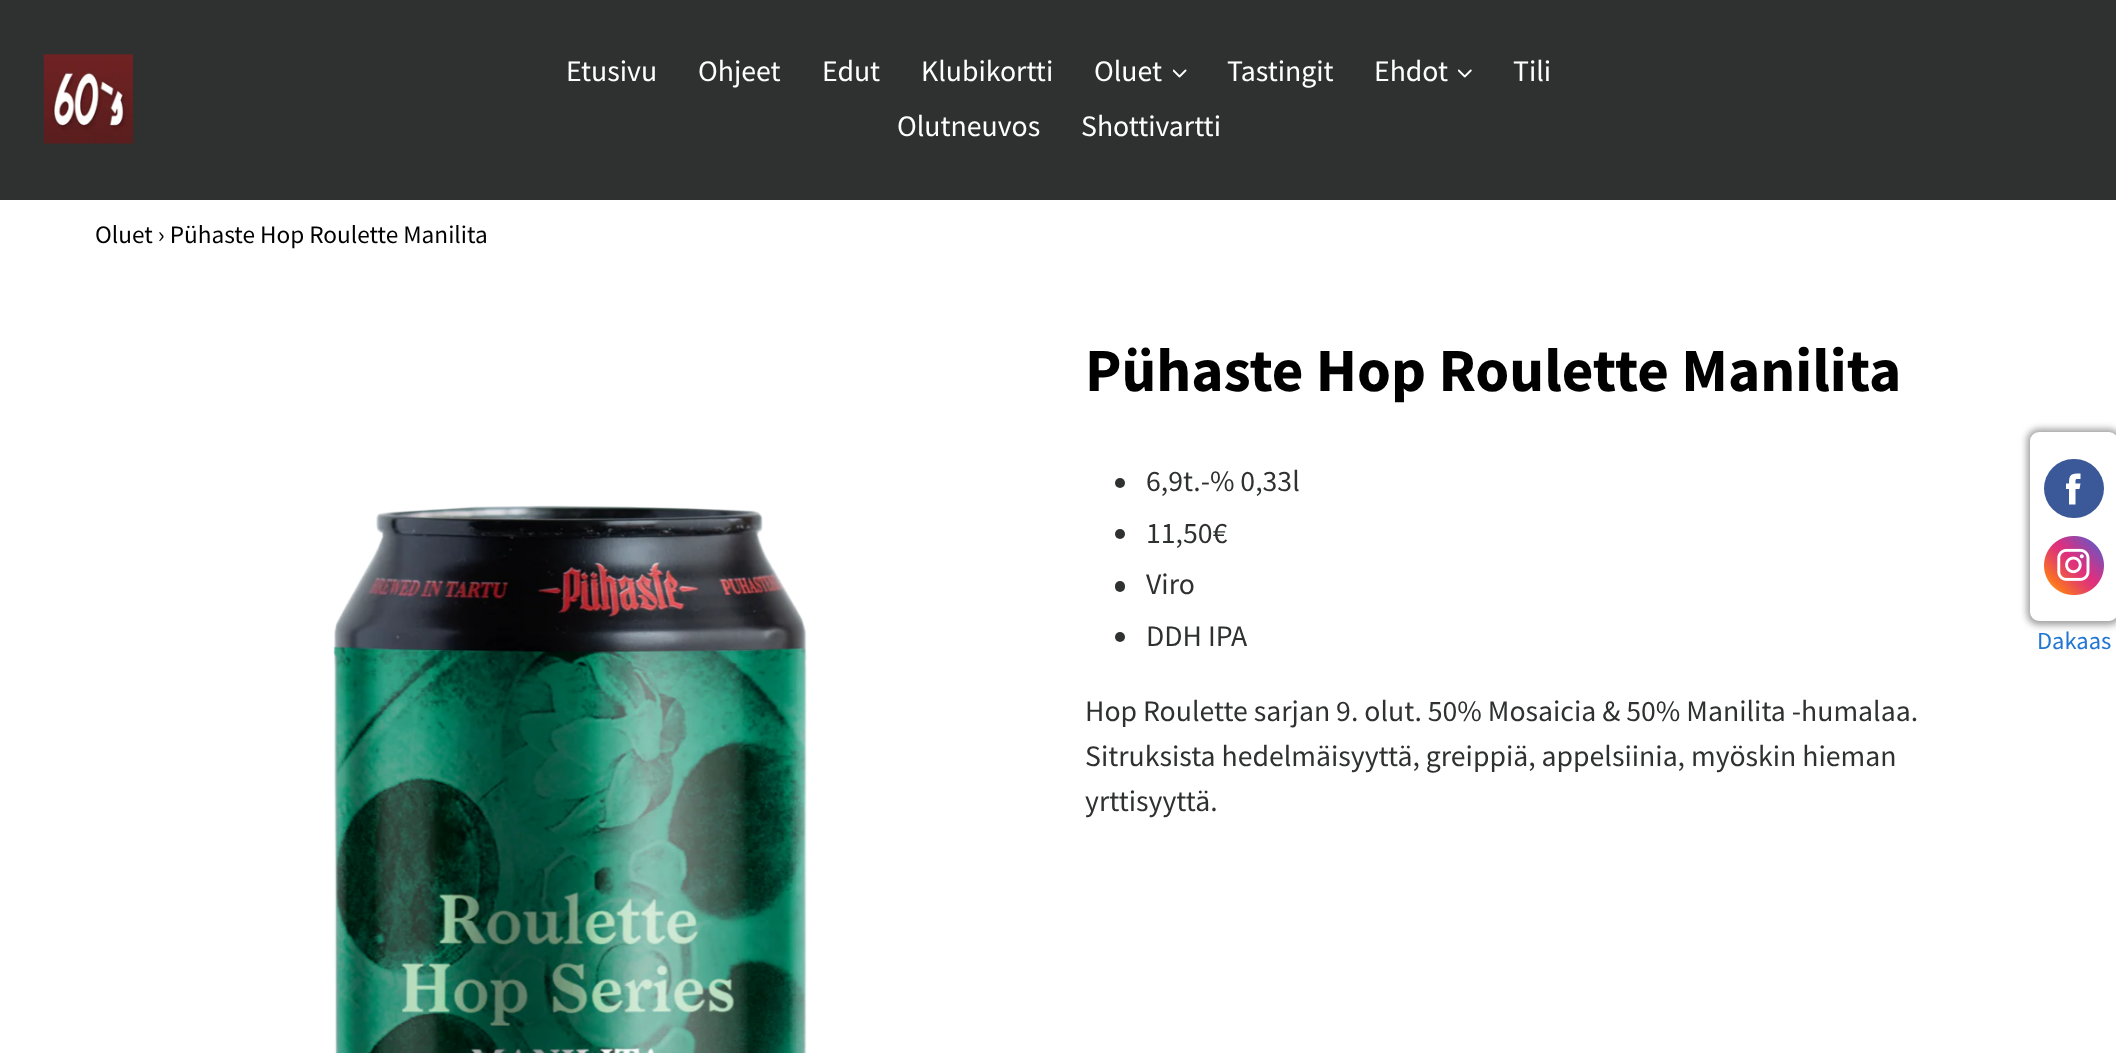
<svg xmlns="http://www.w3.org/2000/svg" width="2116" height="1053">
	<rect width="100%" height="100%" fill="#FFFFFF" />
	<rect x="0" y="0" width="2116" height="200" fill="#2F3131" />
	<image x="43" y="54" width="90" height="90" href="assets/img1.png" />
	<g font-family="Source Sans Pro" font-size="29.75" fill="#FFFFFF">
		<text x="566" y="81">Etusivu</text>
		<text x="698" y="81">Ohjeet</text>
		<text x="822" y="81">Edut</text>
		<text x="921" y="81">Klubikortti</text>
		<text x="1094" y="81">Oluet</text>
	</g>
	<image x="1173" y="69" width="14" height="9" href="assets/img2.png" />
	<g font-family="Source Sans Pro" font-size="29.75" fill="#FFFFFF">
		<text x="1227" y="81">Tastingit</text>
		<text x="1374" y="81">Ehdot</text>
	</g>
	<image x="1458" y="69" width="14" height="9" href="assets/img3.png" />
	<g font-family="Source Sans Pro" font-size="29.75" fill="#FFFFFF">
		<text x="1513" y="81">Tili</text>
		<text x="897" y="136">Olutneuvos</text>
		<text x="1081" y="136">Shottivartti</text>
	</g>
	<text x="95" y="243" font-family="Source Sans Pro" font-size="25.25" fill="#000000">Oluet › Pühaste Hop Roulette Manilita</text>
	<image x="333" y="505" width="474" height="548" href="assets/img4.png" />
	<text x="1085" y="391" font-family="Source Sans Pro" font-size="61.25" font-weight="700" fill="#000000">Pühaste Hop Roulette Manilita</text>
	<circle cx="1120" cy="483" r="5" fill="#2F3131" />
	<text x="1146" y="491" font-family="Source Sans Pro" font-size="29.75" fill="#2F3131">6,9t.-% 0,33l</text>
	<circle cx="1120" cy="534" r="5" fill="#2F3131" />
	<text x="1146" y="543" font-family="Source Sans Pro" font-size="29.75" fill="#2F3131">11,50€</text>
	<rect x="1115" y="581" width="10" height="11" rx="5" fill="#2F3131" />
	<text x="1146" y="594" font-family="Source Sans Pro" font-size="29.75" fill="#2F3131">Viro</text>
	<circle cx="1120" cy="637" r="5" fill="#2F3131" />
	<g font-family="Source Sans Pro" font-size="29.75" fill="#2F3131">
		<text x="1146" y="646">DDH IPA</text>
		<text x="1085" y="721">Hop Roulette sarjan 9. olut. 50% Mosaicia &amp; 50% Manilita -humalaa.</text>
		<text x="1085" y="766">Sitruksista hedelmäisyyttä, greippiä, appelsiinia, myöskin hieman</text>
		<text x="1085" y="811">yrttisyyttä.</text>
	</g>
	<rect x="2027" y="429" width="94" height="196" rx="12" fill="#9E9E9E" filter="blur(3.5px)" />
	<rect x="2030" y="432" width="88" height="189" rx="9" fill="#FFFFFF" />
	<rect x="2044" y="459" width="60" height="59" rx="29.5" fill="#3B5998" />
	<path d="M2079.5 489H2075.5V504.5H2069V489H2066V483.5H2069C2069 474 2071 473.5 2080.5 473.5V479C2075 479 2075.5 478.5 2075.5 483.5H2080.5Z" fill="#FFFFFF" />
	<image x="2044" y="536" width="60" height="59" href="assets/img5.png" />
	<text x="2037" y="649" font-family="Source Sans Pro" font-size="24.5" fill="#2076D2">Dakaas</text>
</svg>
